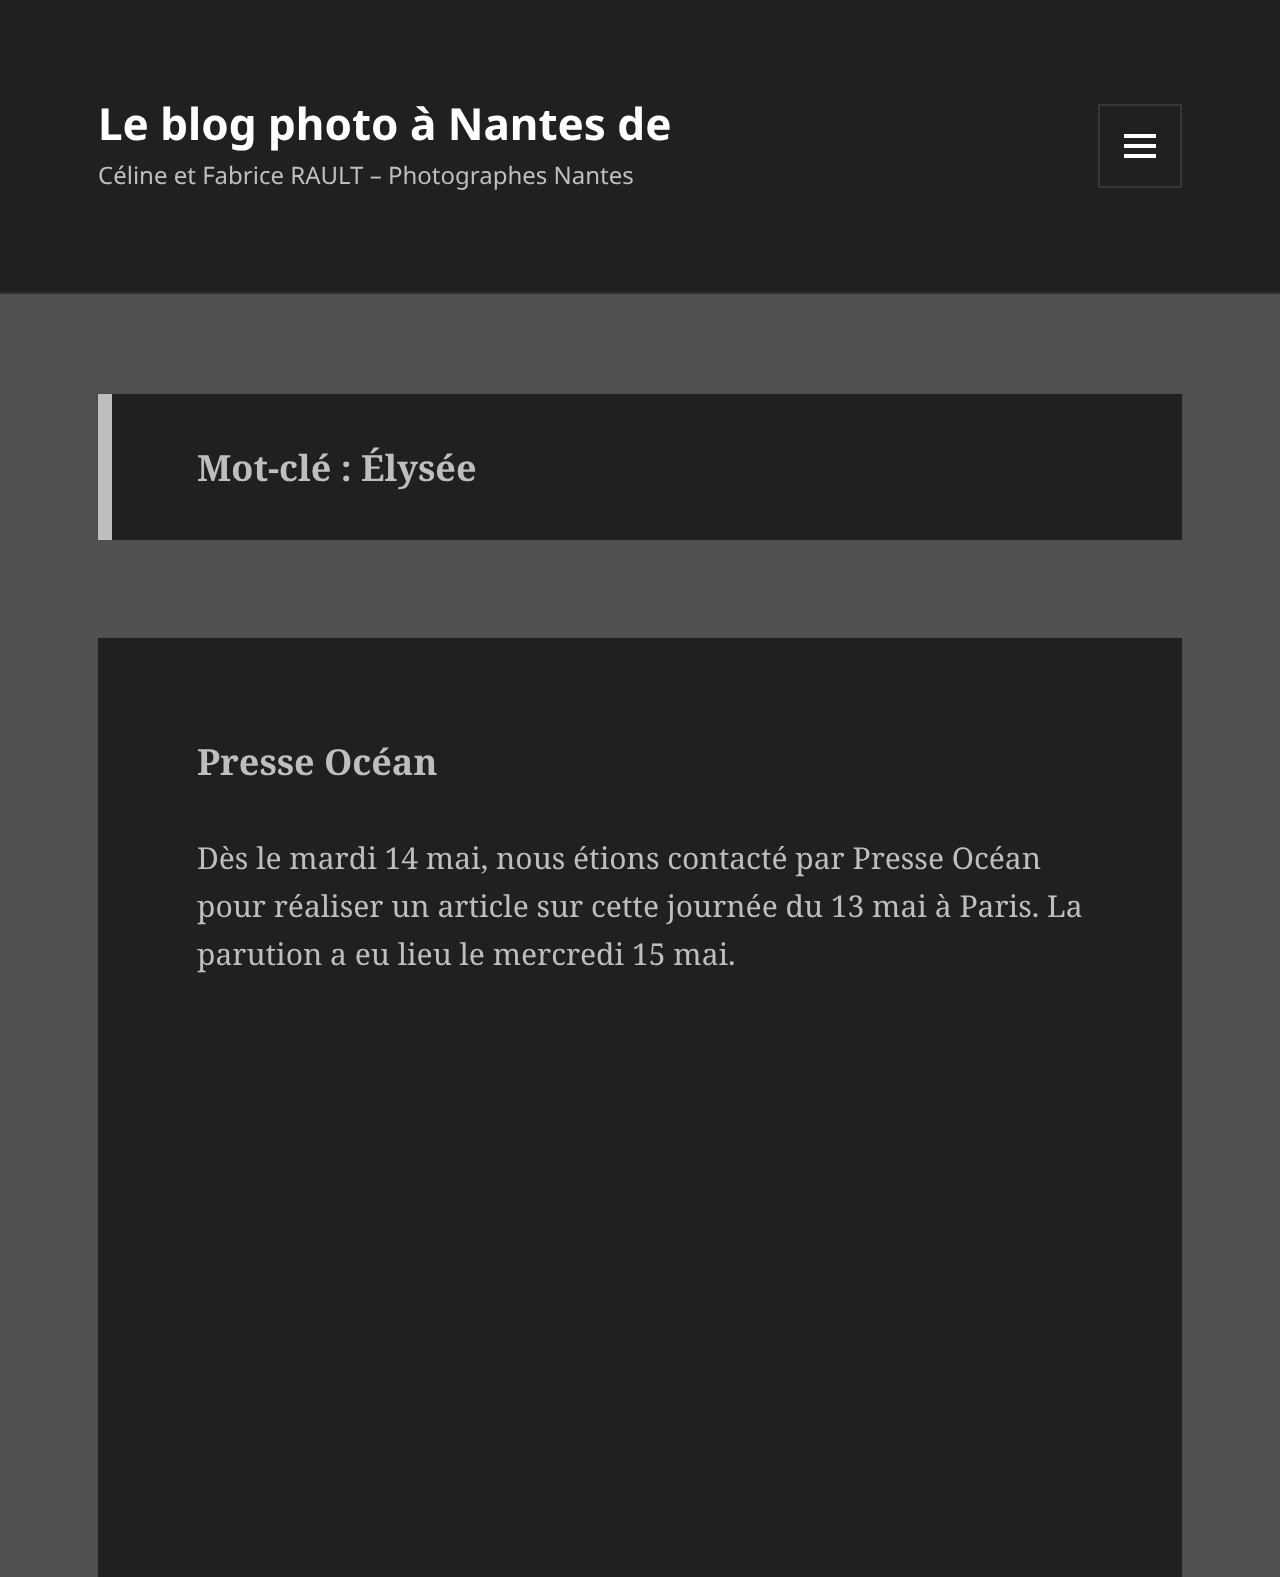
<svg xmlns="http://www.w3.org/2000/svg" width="1280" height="1577">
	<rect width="100%" height="100%" fill="#515151" />
	<rect x="0" y="0" width="1280" height="292" fill="#202020" />
	<rect x="0" y="292" width="1280" height="2" fill="#303030" />
	<text x="98" y="140" font-family="Noto Sans" font-size="44" font-weight="700" fill="#FFFFFF">Le blog photo à Nantes de</text>
	<rect x="1099" y="105" width="82" height="82" fill="none" stroke="#363636" stroke-width="2" />
	<image x="1124" y="134" width="32" height="24" href="assets/img1.png" />
	<text x="98" y="184" font-family="Noto Sans" font-size="24" fill="#BEBEBE">Céline et Fabrice RAULT – Photographes Nantes</text>
	<rect x="98" y="394" width="1084" height="146" fill="#000000" fill-opacity="0.15" filter="blur(1px)" />
	<rect x="112" y="394" width="1070" height="146" fill="#202020" />
	<rect x="98" y="394" width="14" height="146" fill="#BEBEBE" />
	<text x="197" y="481" font-family="Noto Serif" font-size="36" font-weight="700" fill="#BEBEBE">Mot-clé : Élysée</text>
	<rect x="98" y="638" width="1084" height="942" fill="#000000" fill-opacity="0.15" filter="blur(1px)" />
	<rect x="98" y="638" width="1084" height="939" fill="#202020" />
	<text x="197" y="775" font-family="Noto Serif" font-size="36" font-weight="700" fill="#BEBEBE">Presse Océan</text>
	<g font-family="Noto Serif" font-size="30" fill="#BEBEBE">
		<text x="197" y="869">Dès le mardi 14 mai, nous étions contacté par Presse Océan</text>
		<text x="197" y="917">pour réaliser un article sur cette journée du 13 mai à Paris. La</text>
		<text x="197" y="965">parution a eu lieu le mercredi 15 mai.</text>
	</g>
</svg>
